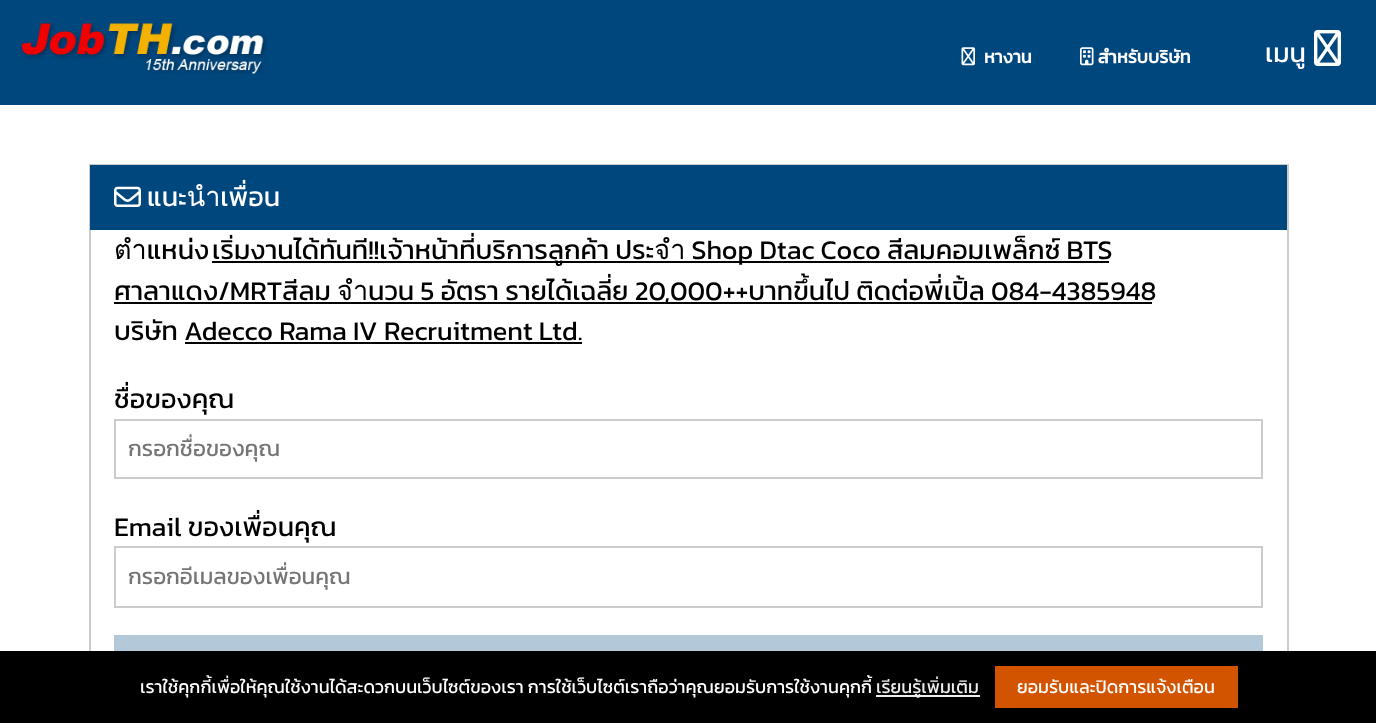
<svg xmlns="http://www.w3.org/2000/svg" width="1376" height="723">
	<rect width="100%" height="100%" fill="#00477E" />
	<image x="21" y="23" width="247" height="51" href="assets/img1.png" />
	<image x="961" y="47" width="14" height="19" href="assets/img2.png" />
	<text x="984" y="63" font-family="Kanit" font-size="18" font-weight="700" fill="#FFFFFF">หางาน</text>
	<image x="1080" y="47" width="14" height="19" href="assets/img3.png" />
	<text x="1098" y="63" font-family="Kanit" font-size="18" font-weight="700" fill="#FFFFFF">สำหรับบริษัท</text>
	<text x="1265" y="62" font-family="Kanit" font-size="27" fill="#FFFFFF">เมนู</text>
	<image x="1314" y="30" width="27" height="36" href="assets/img4.png" />
	<rect x="0" y="105" width="1376" height="546" fill="#FFFFFF" />
	<rect x="90" y="165" width="1198" height="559" fill="none" stroke="#CCCCCC" stroke-width="2" />
	<rect x="90" y="165" width="1197" height="65" fill="#00477E" />
	<image x="114" y="186" width="27" height="21" href="assets/img5.png" />
	<text x="147" y="206" font-family="Kanit" font-size="27" fill="#FFFFFF">แนะนำเพื่อน</text>
	<text x="114" y="259" font-family="Kanit" font-size="27" fill="#000000">ตำแหน่ง</text>
	<rect x="212" y="261" width="897" height="2" fill="#000000" />
	<text x="212" y="259" font-family="Kanit" font-size="27" fill="#000000">เริ่มงานได้ทันที!!เจ้าหน้าที่บริการลูกค้า ประจำ Shop Dtac Coco สีลมคอมเพล็กซ์ BTS</text>
	<rect x="114" y="302" width="1038" height="2" fill="#000000" />
	<g font-family="Kanit" font-size="27" fill="#000000">
		<text x="114" y="300">ศาลาแดง/MRTสีลม จำนวน 5 อัตรา รายได้เฉลี่ย 20,000++บาทขึ้นไป ติดต่อพี่เปิ้ล 084-4385948</text>
		<text x="114" y="340">บริษัท Adecco Rama IV Recruitment Ltd.</text>
	</g>
	<rect x="185" y="342" width="397" height="2" fill="#000000" />
	<text x="114" y="408" font-family="Kanit" font-size="27" fill="#000000">ชื่อของคุณ</text>
	<rect x="115" y="420" width="1147" height="58" fill="none" stroke="#CCCCCC" stroke-width="2" />
	<text x="128" y="456" font-family="Kanit" font-size="22.5" fill="#757575">กรอกชื่อของคุณ</text>
	<text x="114" y="536" font-family="Kanit" font-size="27" fill="#000000">Email ของเพื่อนคุณ</text>
	<rect x="115" y="547" width="1147" height="60" fill="none" stroke="#CCCCCC" stroke-width="2" />
	<text x="128" y="584" font-family="Kanit" font-size="22.5" fill="#757575">กรอกอีเมลของเพื่อนคุณ</text>
	<rect x="114" y="635" width="1149" height="16" fill="#B3C8D8" />
	<rect x="0" y="651" width="1376" height="72" fill="#000000" />
	<text x="140" y="693" font-family="Kanit" font-size="18" fill="#FFFFFF">เราใช้คุกกี้เพื่อให้คุณใช้งานได้สะดวกบนเว็บไซต์ของเรา การใช้เว็บไซต์เราถือว่าคุณยอมรับการใช้งานคุกกี้</text>
	<rect x="876" y="695" width="104" height="2" fill="#EEEEEE" />
	<text x="876" y="693" font-family="Kanit" font-size="18" fill="#EEEEEE">เรียนรู้เพิ่มเติม</text>
	<rect x="995" y="666" width="243" height="42" fill="#D35400" />
	<text x="1017" y="693" font-family="Kanit" font-size="18" fill="#FFFFFF">ยอมรับและปิดการแจ้งเตือน</text>
</svg>
